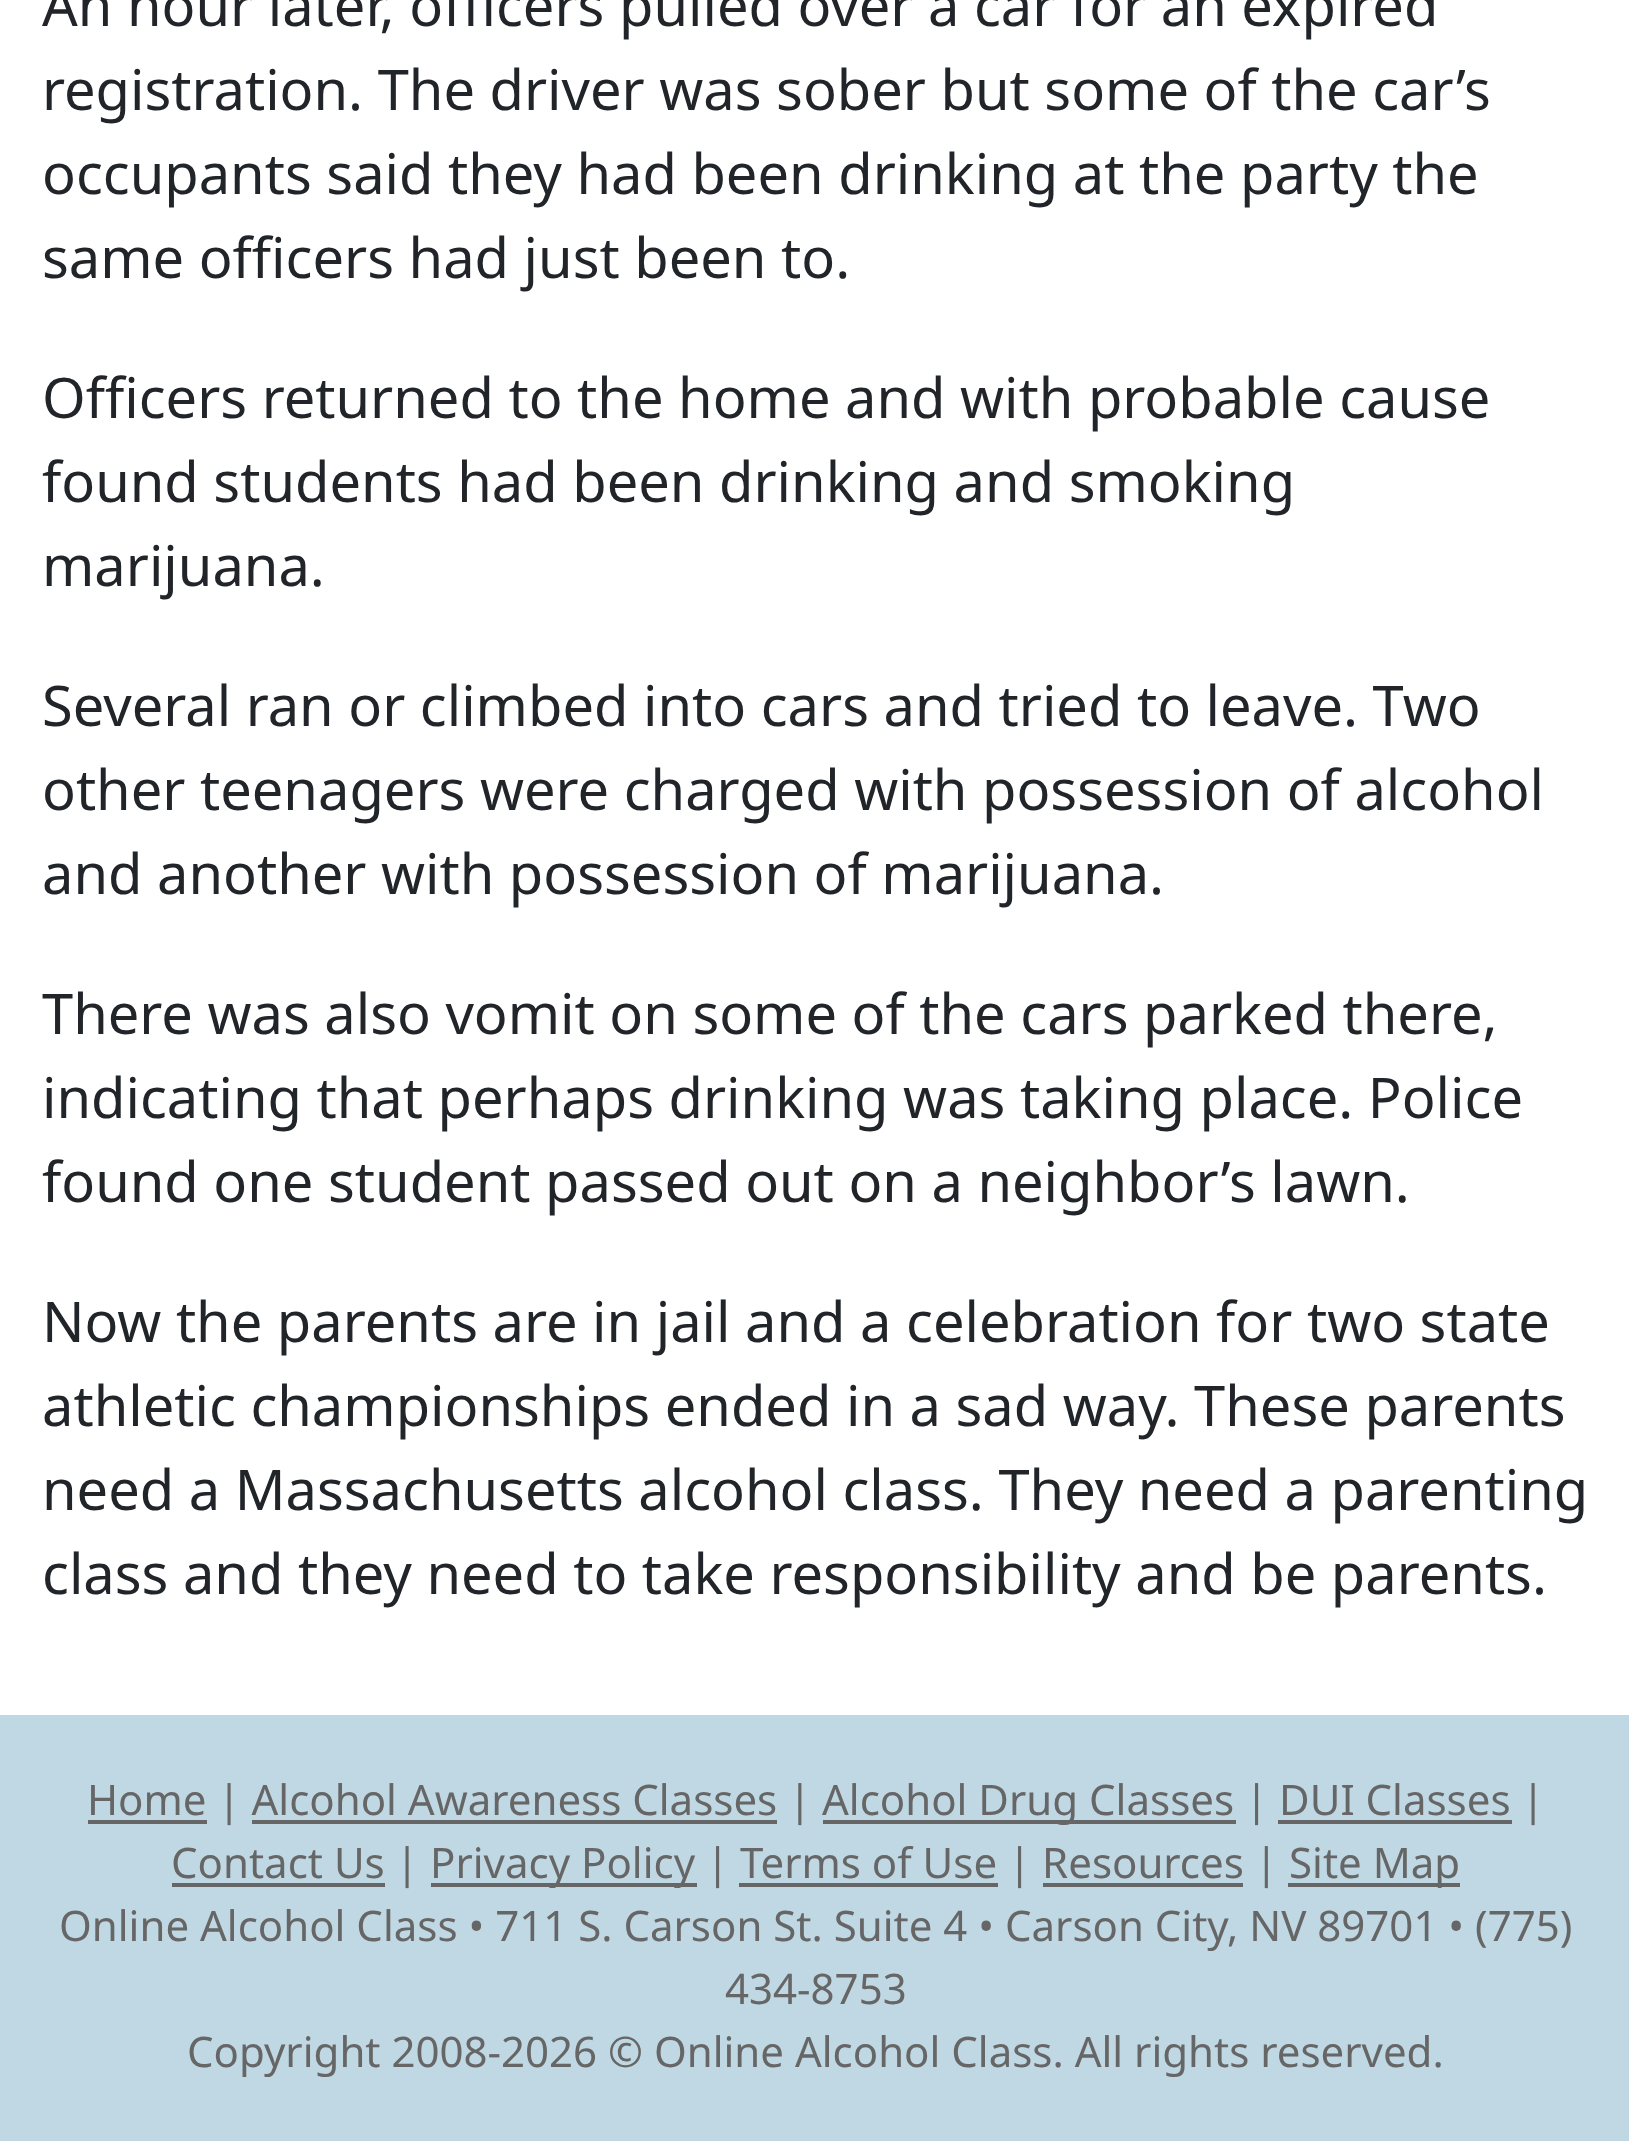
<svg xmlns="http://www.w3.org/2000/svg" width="1629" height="2141">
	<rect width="100%" height="100%" fill="#BFD8E3" />
	<rect x="0" y="0" width="1629" height="1715" fill="#FFFFFF" />
	<g font-family="Noto Sans" font-size="56" fill="#212529">
		<text x="42" y="26">An hour later, officers pulled over a car for an expired</text>
		<text x="42" y="110">registration. The driver was sober but some of the car’s</text>
		<text x="42" y="194">occupants said they had been drinking at the party the</text>
		<text x="42" y="278">same officers had just been to.</text>
		<text x="42" y="418">Officers returned to the home and with probable cause</text>
		<text x="42" y="502">found students had been drinking and smoking</text>
		<text x="42" y="586">marijuana.</text>
		<text x="42" y="726">Several ran or climbed into cars and tried to leave. Two</text>
		<text x="42" y="810">other teenagers were charged with possession of alcohol</text>
		<text x="42" y="894">and another with possession of marijuana.</text>
		<text x="42" y="1034">There was also vomit on some of the cars parked there,</text>
		<text x="42" y="1118">indicating that perhaps drinking was taking place. Police</text>
		<text x="42" y="1202">found one student passed out on a neighbor’s lawn.</text>
		<text x="42" y="1342">Now the parents are in jail and a celebration for two state</text>
		<text x="42" y="1426">athletic championships ended in a sad way. These parents</text>
		<text x="42" y="1510">need a Massachusetts alcohol class. They need a parenting</text>
		<text x="42" y="1594">class and they need to take responsibility and be parents.</text>
	</g>
	<rect x="88" y="1820" width="119" height="4" fill="#666666" />
	<text x="87" y="1815" font-family="Noto Sans" font-size="42" fill="#666666">Home | Alcohol Awareness Classes |</text>
	<rect x="823" y="1820" width="413" height="4" fill="#666666" />
	<text x="822" y="1815" font-family="Noto Sans" font-size="42" fill="#666666">Alcohol Drug Classes | DUI Classes |</text>
	<rect x="252" y="1820" width="525" height="4" fill="#666666" />
	<rect x="1278" y="1820" width="234" height="4" fill="#666666" />
	<rect x="172" y="1883" width="213" height="4" fill="#666666" />
	<text x="171" y="1878" font-family="Noto Sans" font-size="42" fill="#666666">Contact Us |</text>
	<rect x="431" y="1883" width="266" height="4" fill="#666666" />
	<text x="430" y="1878" font-family="Noto Sans" font-size="42" fill="#666666">Privacy Policy | Terms of Use | Resources |</text>
	<rect x="1288" y="1883" width="172" height="4" fill="#666666" />
	<text x="1289" y="1878" font-family="Noto Sans" font-size="42" fill="#666666">Site Map</text>
	<rect x="739" y="1883" width="259" height="4" fill="#666666" />
	<rect x="1043" y="1883" width="200" height="4" fill="#666666" />
	<g font-family="Noto Sans" font-size="42" fill="#666666">
		<text x="59" y="1941">Online Alcohol Class • 711 S. Carson St. Suite 4 • Carson City, NV 89701 • (775)</text>
		<text x="725" y="2004">434-8753</text>
		<text x="187" y="2067">Copyright 2008-2026 © Online Alcohol Class. All rights reserved.</text>
	</g>
</svg>
